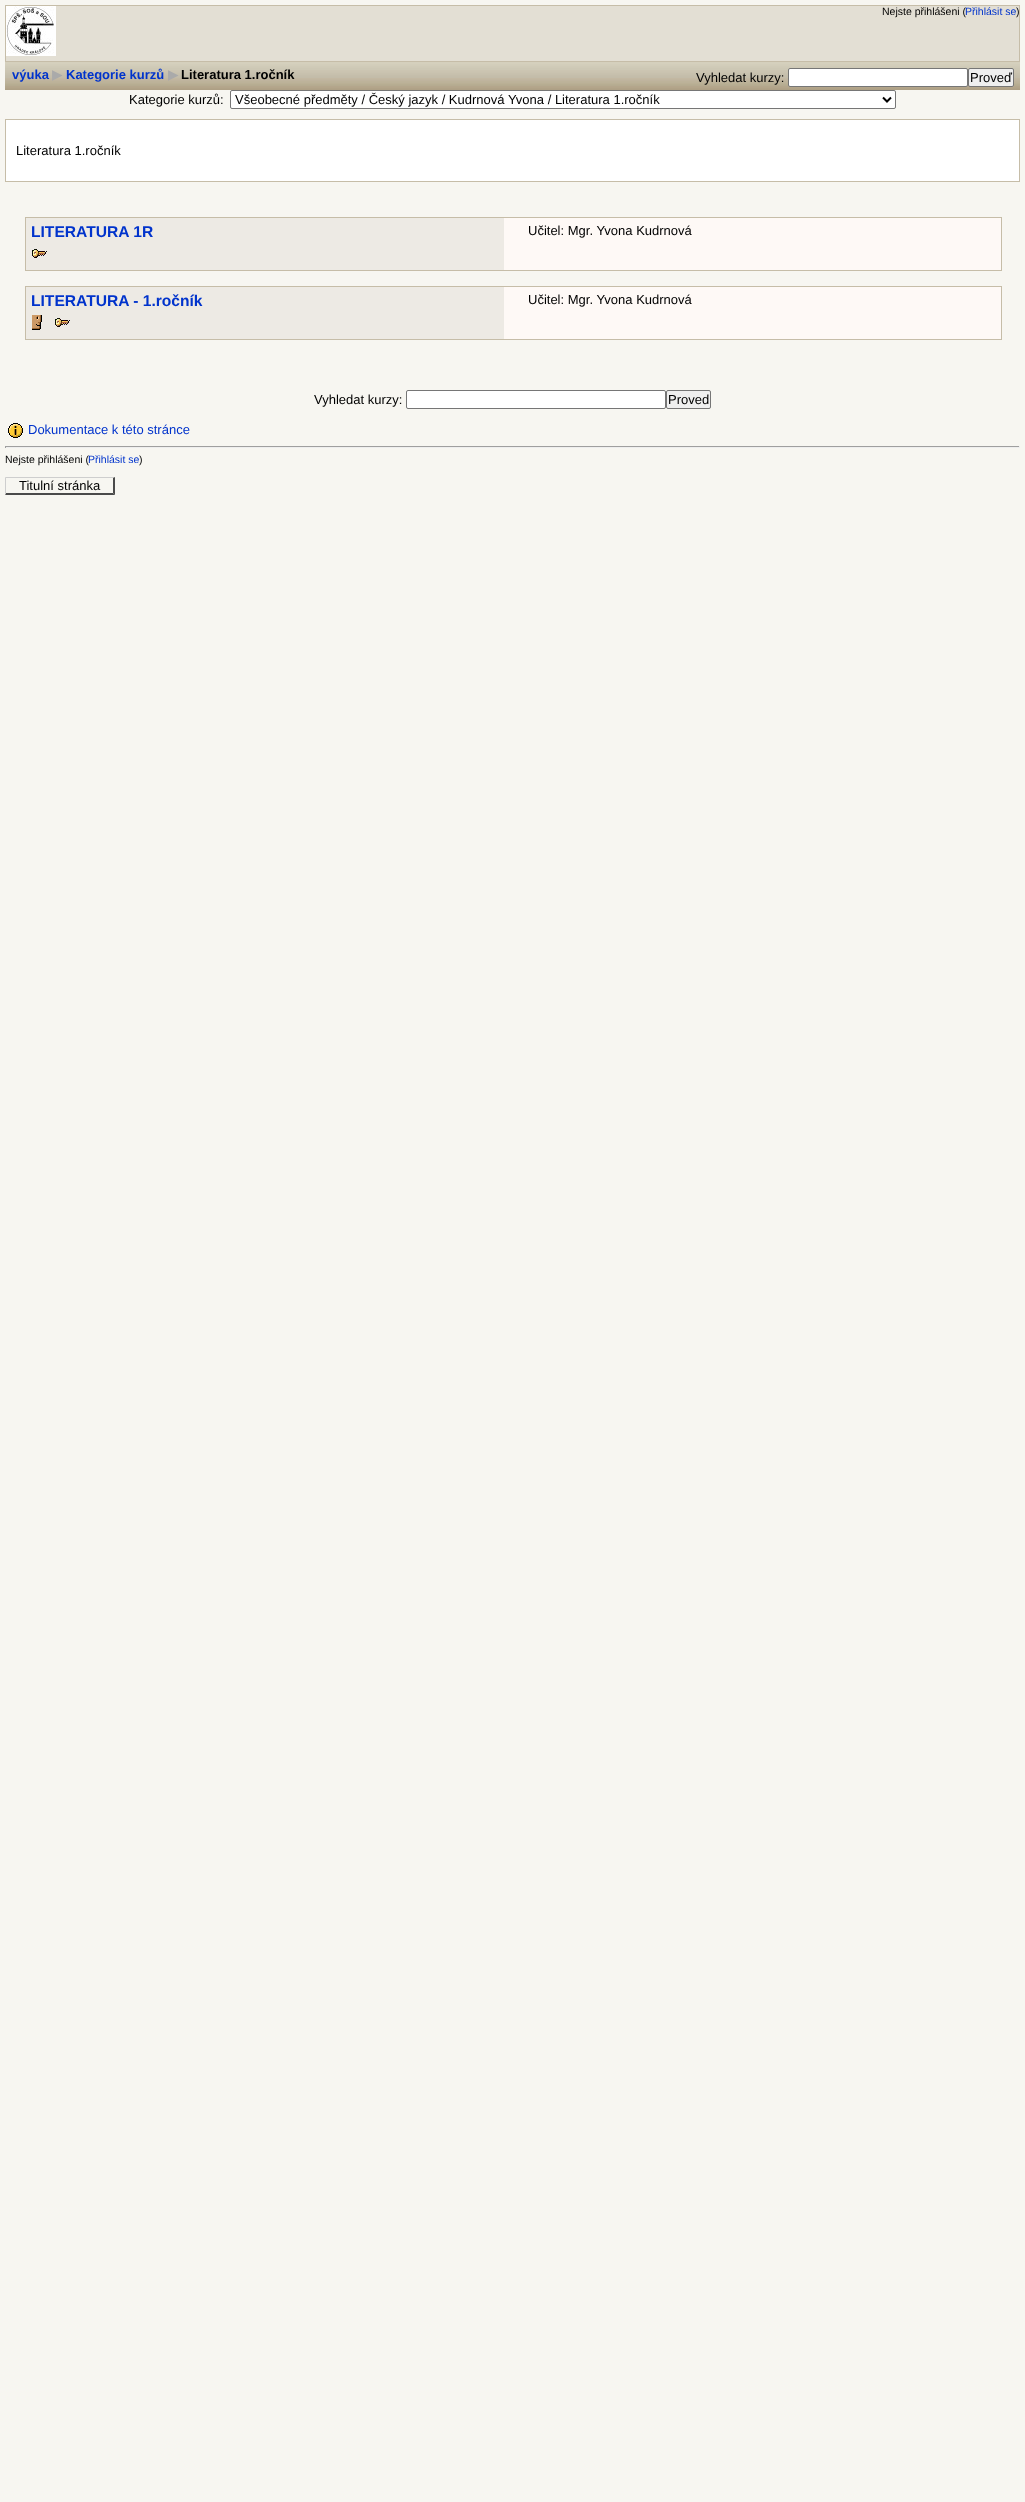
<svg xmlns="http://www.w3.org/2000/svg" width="1025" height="2502">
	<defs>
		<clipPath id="clip1"><rect x="668" y="392" width="41" height="15" /></clipPath>
	</defs>
	<rect width="100%" height="100%" fill="#F7F6F1" />
	<rect x="5.5" y="5.5" width="1014" height="56" fill="#E3DFD4" stroke="#C6BDA8" />
	<image x="6" y="6" width="50" height="50" href="assets/img1.png" />
	<text x="882" y="15" font-family="Liberation Sans" font-size="10.5" fill="#000000">Nejste přihlášeni (</text>
	<text x="965" y="15" font-family="Liberation Sans" font-size="10.5" fill="#0033CC">Přihlásit se</text>
	<text x="1016" y="15" font-family="Liberation Sans" font-size="10.5" fill="#000000">)</text>
	<image x="5" y="62" width="1015" height="28" href="assets/img2.png" />
	<text x="12" y="79" font-family="Liberation Sans" font-size="13" font-weight="700" fill="#0033CC">výuka</text>
	<text x="52" y="79" font-family="DejaVu Sans" font-size="13" font-weight="700" fill="#AAAAAA">▶</text>
	<text x="66" y="79" font-family="Liberation Sans" font-size="13" font-weight="700" fill="#0033CC">Kategorie kurzů</text>
	<text x="168" y="79" font-family="DejaVu Sans" font-size="13" font-weight="700" fill="#AAAAAA">▶</text>
	<text x="181" y="79" font-family="Liberation Sans" font-size="13" font-weight="700" fill="#000000">Literatura 1.ročník</text>
	<text x="696" y="82" font-family="Liberation Sans" font-size="13" fill="#000000">Vyhledat kurzy:</text>
	<rect x="788.5" y="68.5" width="179" height="18" rx="1.5" fill="#FFFFFF" stroke="#767676" />
	<rect x="968.5" y="68.5" width="45" height="18" rx="1.5" fill="#EFEFEF" stroke="#767676" />
	<g font-family="Liberation Sans" font-size="13" fill="#000000">
		<text x="970" y="82">Proveď</text>
		<text x="129" y="104">Kategorie kurzů:</text>
	</g>
	<rect x="230.5" y="90.5" width="665" height="18" rx="1.5" fill="#FFFFFF" stroke="#767676" />
	<path d="M883 97.5L887 101.5L891 97.5" fill="none" stroke="#000000" stroke-width="2" />
	<text x="235" y="104" font-family="Liberation Sans" font-size="13" fill="#000000">Všeobecné předměty / Český jazyk / Kudrnová Yvona / Literatura 1.ročník</text>
	<rect x="5.5" y="119.5" width="1014" height="62" fill="#FFFFFF" stroke="#C6BDA8" />
	<text x="16" y="155" font-family="Liberation Sans" font-size="13" fill="#000000">Literatura 1.ročník</text>
	<rect x="504" y="218" width="497" height="52" fill="#FEF9F6" />
	<rect x="25.5" y="217.5" width="976" height="53" fill="none" stroke="#C6BDA8" />
	<rect x="26" y="218" width="478" height="52" fill="#EDEAE4" />
	<text x="31" y="237" font-family="Liberation Sans" font-size="15.6" font-weight="700" fill="#0033CC">LITERATURA 1R</text>
	<image x="32" y="249" width="15" height="9" href="assets/img3.png" />
	<text x="528" y="235" font-family="Liberation Sans" font-size="13" fill="#000000">Učitel: Mgr. Yvona Kudrnová</text>
	<rect x="504" y="287" width="497" height="52" fill="#FEF9F6" />
	<rect x="25.5" y="286.5" width="976" height="53" fill="none" stroke="#C6BDA8" />
	<rect x="26" y="287" width="478" height="52" fill="#EDEAE4" />
	<text x="31" y="306" font-family="Liberation Sans" font-size="15.6" font-weight="700" fill="#0033CC">LITERATURA - 1.ročník</text>
	<image x="32" y="315" width="10" height="15" href="assets/img4.png" />
	<image x="55" y="318" width="15" height="9" href="assets/img3.png" />
	<g font-family="Liberation Sans" font-size="13" fill="#000000">
		<text x="528" y="304">Učitel: Mgr. Yvona Kudrnová</text>
		<text x="314" y="404">Vyhledat kurzy:</text>
	</g>
	<rect x="406.5" y="390.5" width="259" height="18" rx="1.5" fill="#FFFFFF" stroke="#767676" />
	<rect x="666.5" y="390.5" width="44" height="18" rx="1.5" fill="#EFEFEF" stroke="#767676" />
	<g clip-path="url(#clip1)">
		<text x="668" y="404" font-family="Liberation Sans" font-size="13" fill="#000000">Proveď</text>
	</g>
	<image x="8" y="423" width="15" height="15" href="assets/img5.png" />
	<text x="28" y="434" font-family="Liberation Sans" font-size="13" fill="#0033CC">Dokumentace k této stránce</text>
	<rect x="5" y="446" width="1015" height="1" fill="#9F9F9F" />
	<rect x="1019" y="446" width="1" height="2" fill="#EEEEEE" />
	<rect x="5" y="447" width="1015" height="1" fill="#EEEEEE" />
	<rect x="5" y="446" width="1" height="2" fill="#9F9F9F" />
	<text x="5" y="463" font-family="Liberation Sans" font-size="10.5" fill="#000000">Nejste přihlášeni (</text>
	<text x="88" y="463" font-family="Liberation Sans" font-size="10.5" fill="#0033CC">Přihlásit se</text>
	<text x="139" y="463" font-family="Liberation Sans" font-size="10.5" fill="#000000">)</text>
	<text x="19" y="490" font-family="Liberation Sans" font-size="13" fill="#000000">Titulní stránka</text>
	<path d="M5 477H115L113 478H6Z" fill="#CECECE" />
	<path d="M115 477V495L113 493V478Z" fill="#4A4A4A" />
	<path d="M115 495H5L6 493H113Z" fill="#4A4A4A" />
	<path d="M5 495V477L6 478V493Z" fill="#CECECE" />
</svg>
